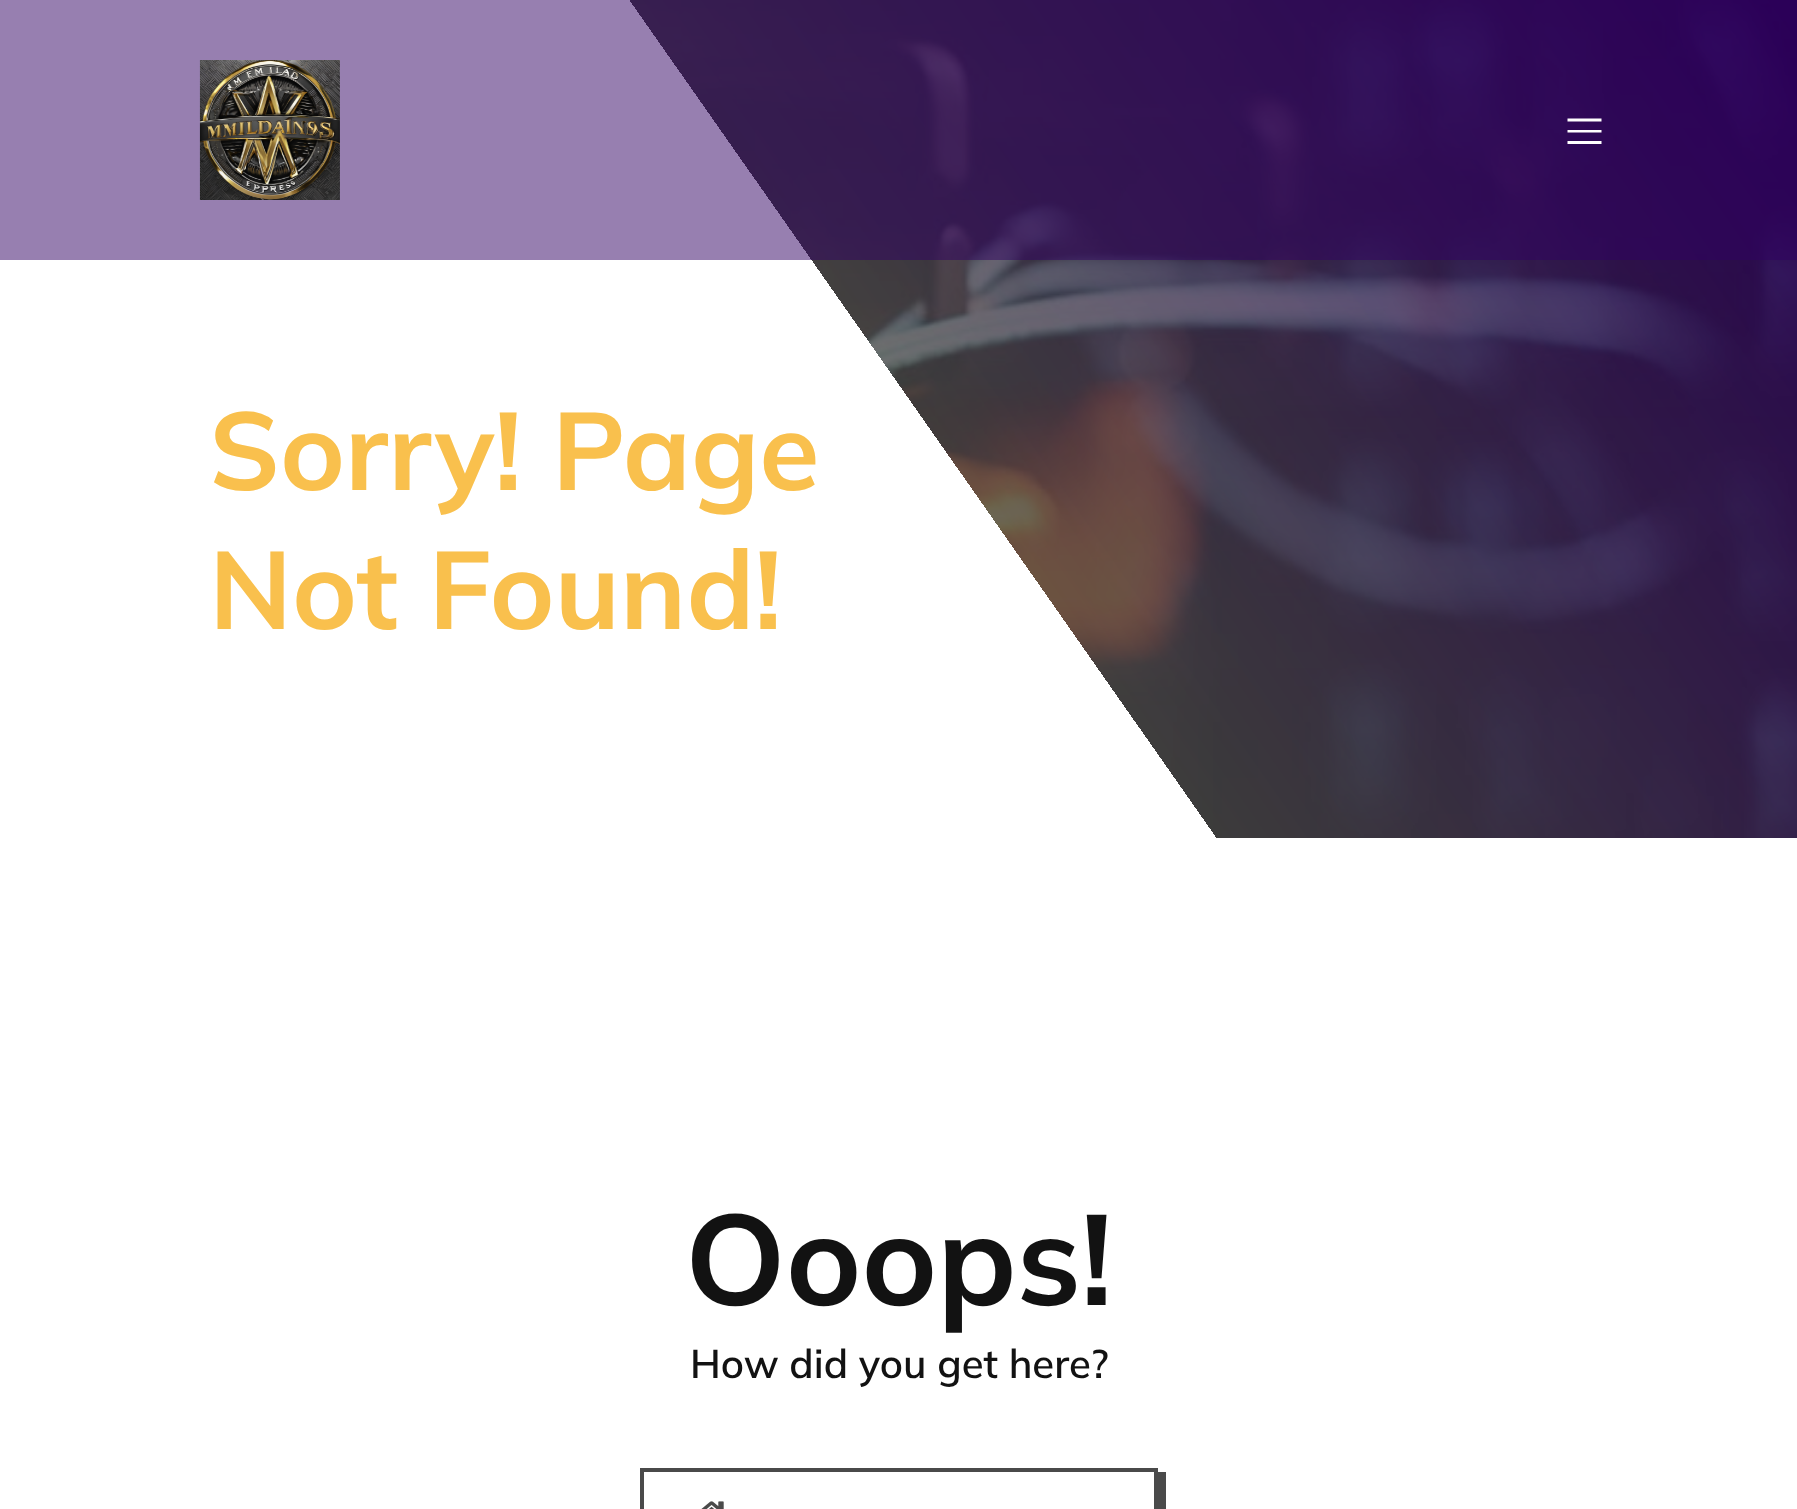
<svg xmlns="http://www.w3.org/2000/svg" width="1797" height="1509">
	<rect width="100%" height="100%" fill="#FFFFFF" />
	<image x="0" y="0" width="1797" height="838" href="assets/img2.png" />
	<rect x="0" y="0" width="1797" height="260" fill="#2F0061" fill-opacity="0.5" />
	<image x="199" y="60" width="141" height="140" href="assets/img1.png" />
	<path d="M1567.5 118.5H1601.5V121.5H1567.5ZM1567.5 130H1601.5V132.5H1567.5ZM1567.5 141H1601.5V144H1567.5Z" fill="#FFFFFF" />
	<g font-family="Mulish" font-size="110" font-weight="700" fill="#F9C04D">
		<text x="209" y="490">Sorry! Page</text>
		<text x="209" y="629">Not Found!</text>
	</g>
	<text x="685" y="1305" font-family="Mulish" font-size="128" font-weight="700" fill="#121212">Ooops!</text>
	<text x="690" y="1378" font-family="Mulish" font-size="40" font-weight="600" fill="#121212">How did you get here?</text>
	<path d="M644 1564V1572H1166V1472H1158V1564Z" fill="#4A4A4A" />
	<rect x="642" y="1470" width="514" height="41" fill="none" stroke="#4A4A4A" stroke-width="4" />
	<image x="701" y="1501" width="23" height="8" href="assets/img3.png" />
</svg>
